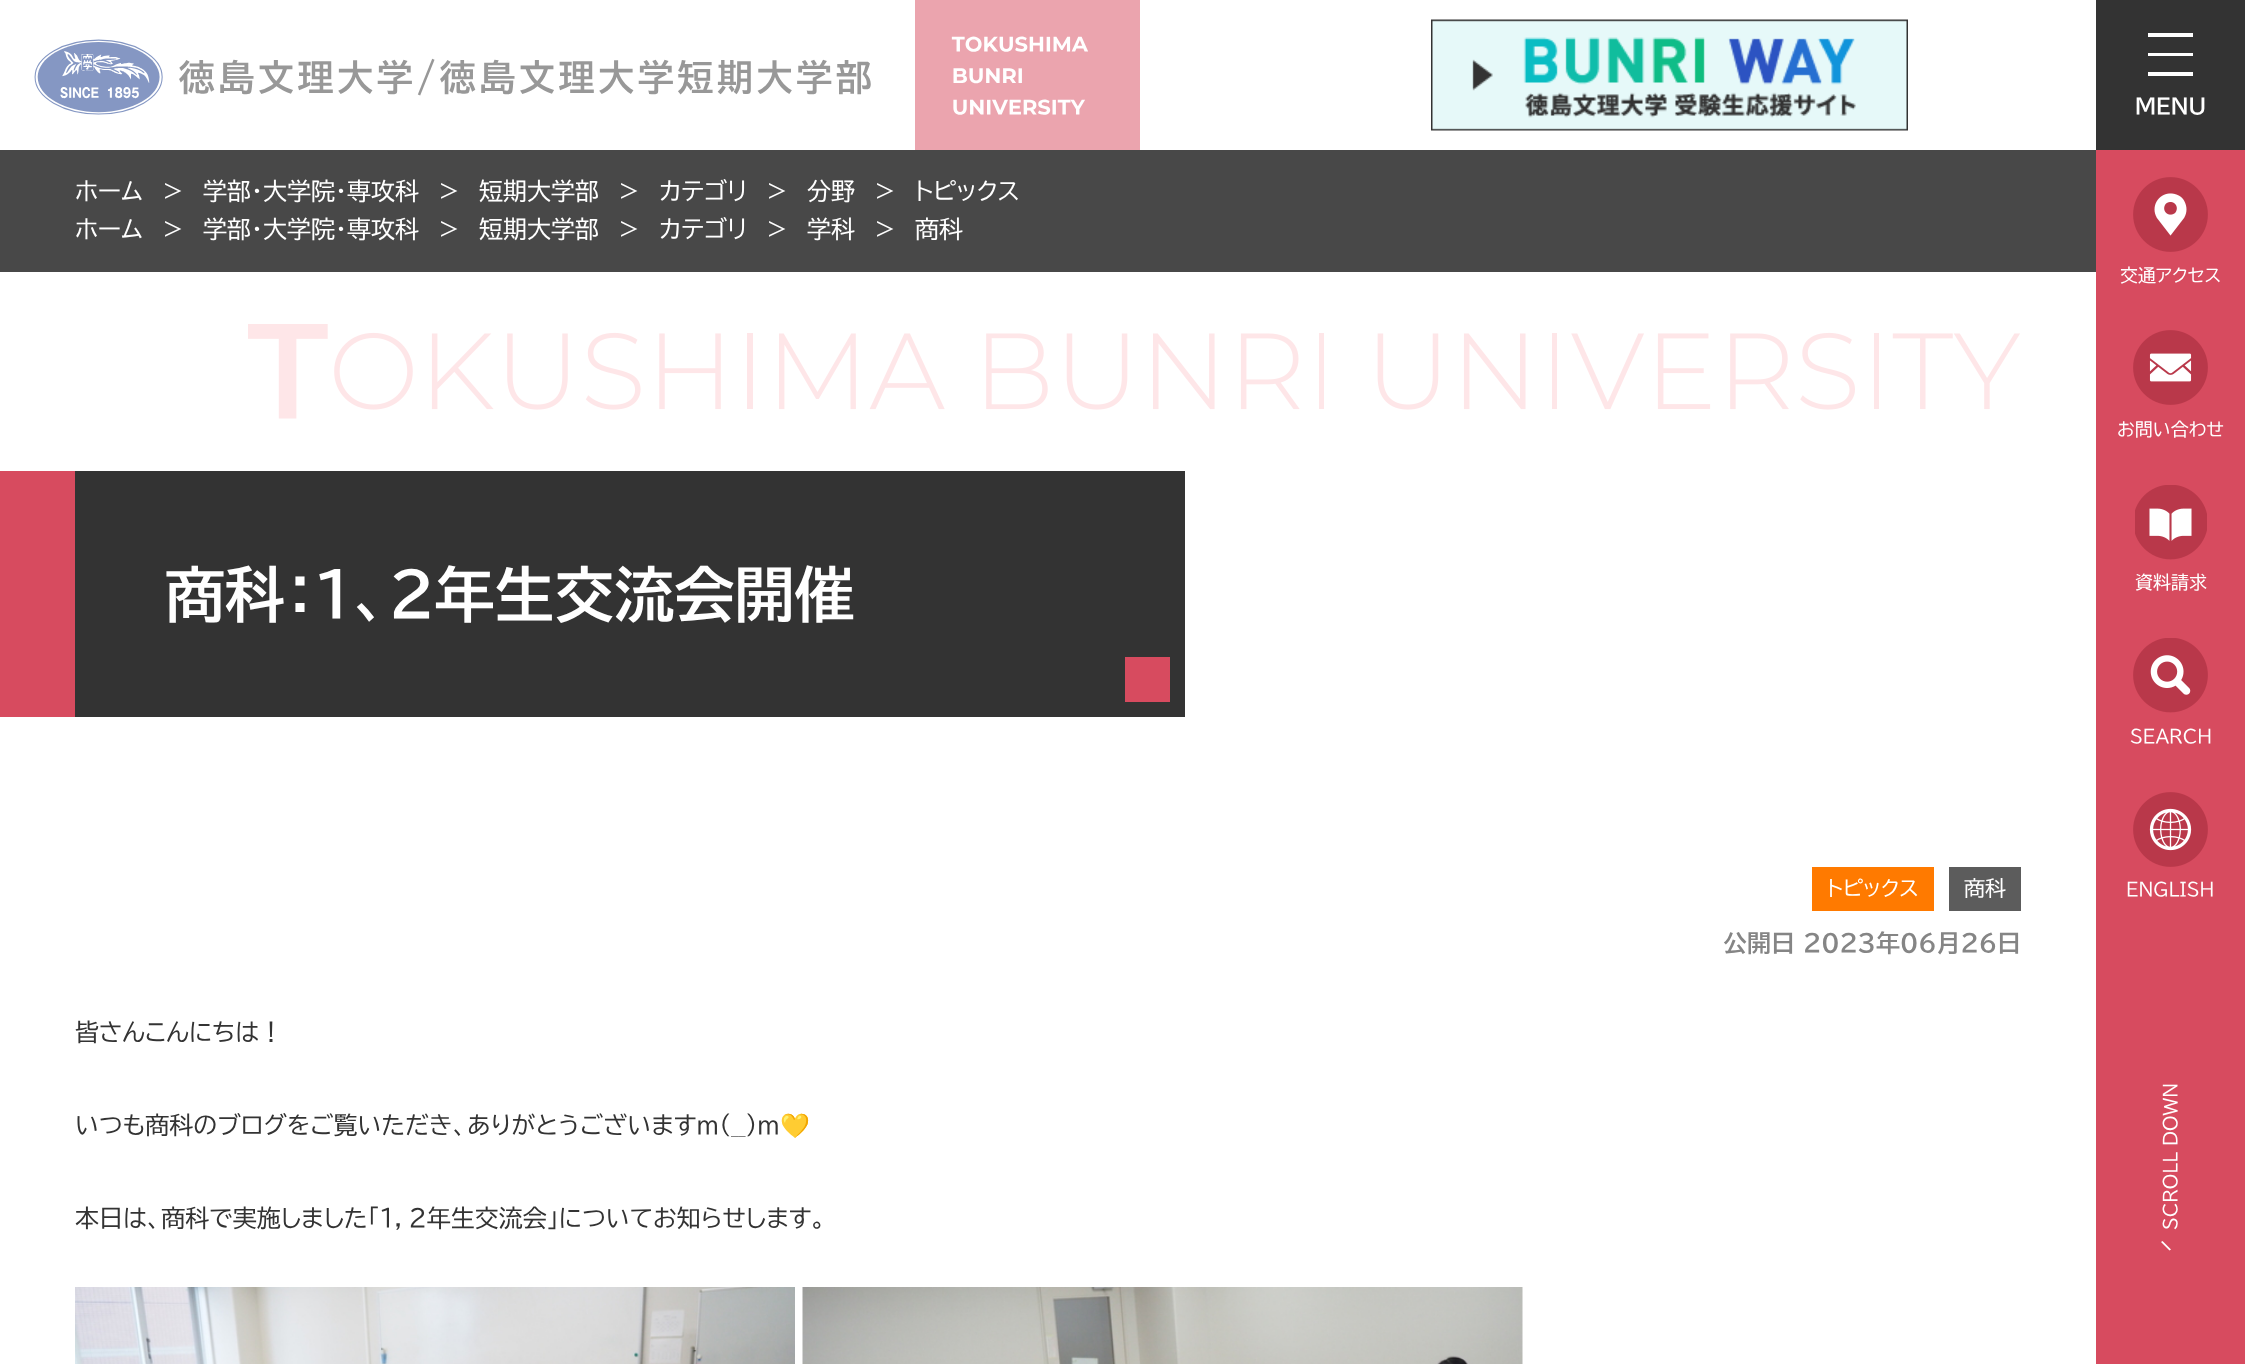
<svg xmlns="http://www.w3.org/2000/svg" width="2245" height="1364">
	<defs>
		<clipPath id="clip1"><rect x="2148" y="33" width="45" height="45" /></clipPath>
	</defs>
	<rect width="100%" height="100%" fill="#FFFFFF" />
	<image x="34" y="0" width="1106" height="150" href="assets/img1.png" />
	<image x="1431" y="19" width="477" height="112" href="assets/img2.png" />
	<rect x="2096" y="0" width="149" height="150" fill="#333333" />
	<g clip-path="url(#clip1)">
		<path d="M2204 76H2138V72H2204ZM2204 56H2138V53H2204ZM2204 37H2138V33H2204Z" fill="#FFFFFF" />
	</g>
	<text x="2135" y="114" font-family="BIZ UDPGothic" font-size="21" font-weight="700" fill="#FFFFFF">MENU</text>
	<rect x="0" y="150" width="2096" height="122" fill="#484848" />
	<g font-family="BIZ UDPGothic" font-size="24" fill="#FFFFFF">
		<text x="75" y="200">ホーム</text>
		<text x="161" y="200">＞</text>
		<text x="203" y="200">学部・大学院・専攻科</text>
		<text x="437" y="200">＞</text>
		<text x="479" y="200">短期大学部</text>
		<text x="617" y="200">＞</text>
		<text x="659" y="200">カテゴリ</text>
		<text x="765" y="200">＞</text>
		<text x="807" y="200">分野</text>
		<text x="873" y="200">＞</text>
		<text x="915" y="200">トピックス</text>
		<text x="75" y="238">ホーム</text>
		<text x="161" y="238">＞</text>
		<text x="203" y="238">学部・大学院・専攻科</text>
		<text x="437" y="238">＞</text>
		<text x="479" y="238">短期大学部</text>
		<text x="617" y="238">＞</text>
		<text x="659" y="238">カテゴリ</text>
		<text x="765" y="238">＞</text>
		<text x="807" y="238">学科</text>
		<text x="873" y="238">＞</text>
		<text x="915" y="238">商科</text>
	</g>
	<image x="248" y="324" width="1772" height="95" href="assets/img3.png" />
	<rect x="75" y="471" width="1110" height="246" fill="#333333" />
	<rect x="0" y="471" width="75" height="246" fill="#D74B5F" />
	<text x="165" y="617" font-family="BIZ UDPGothic" font-size="60" font-weight="700" fill="#FFFFFF">商科：１、２年生交流会開催</text>
	<rect x="1125" y="657" width="45" height="45" fill="#D74B5F" />
	<rect x="2096" y="150" width="149" height="1214" fill="#D74B5F" />
	<image x="2133" y="177" width="75" height="75" href="assets/img4.png" />
	<text x="2120" y="282" font-family="BIZ UDPGothic" font-size="18" fill="#FFFFFF">交通アクセス</text>
	<image x="2133" y="330" width="75" height="75" href="assets/img5.png" />
	<text x="2117" y="436" font-family="BIZ UDPGothic" font-size="18" fill="#FFFFFF">お問い合わせ</text>
	<image x="2135" y="485" width="72" height="75" href="assets/img6.png" />
	<text x="2135" y="589" font-family="BIZ UDPGothic" font-size="18" fill="#FFFFFF">資料請求</text>
	<image x="2133" y="638" width="75" height="75" href="assets/img7.png" />
	<text x="2130" y="743" font-family="BIZ UDPGothic" font-size="18" fill="#FFFFFF">SEARCH</text>
	<image x="2133" y="792" width="75" height="75" href="assets/img8.png" />
	<g font-family="BIZ UDPGothic" font-size="18" fill="#FFFFFF">
		<text x="2126" y="896">ENGLISH</text>
		<text x="2177" y="1230" transform="rotate(-90 2177 1230)">SCROLL DOWN</text>
	</g>
	<path d="M2169.5 1250.5L2161 1242L2162.5 1241L2171 1249.5Z" fill="#FFFFFF" />
	<rect x="1812" y="867" width="122" height="44" fill="#FF7A00" />
	<text x="1827" y="896" font-family="BIZ UDPGothic" font-size="21" fill="#FFFFFF">トピックス</text>
	<rect x="1949" y="867" width="72" height="44" fill="#5C5C5C" />
	<text x="1964" y="896" font-family="BIZ UDPGothic" font-size="21" fill="#FFFFFF">商科</text>
	<text x="1723" y="952" font-family="BIZ UDPGothic" font-size="24" font-weight="700" fill="#858585">公開日 2023年06月26日</text>
	<g font-family="BIZ UDPGothic" font-size="24" fill="#333333">
		<text x="75" y="1041">皆さんこんにちは！</text>
		<text x="75" y="1134">いつも商科のブログをご覧いただき、ありがとうございますm(__)m</text>
	</g>
	<text x="780" y="1134" font-family="Noto Color Emoji" font-size="24" fill="#333333">💛</text>
	<text x="75" y="1227" font-family="BIZ UDPGothic" font-size="24" fill="#333333">本日は、商科で実施しました「１，２年生交流会」についてお知らせします。</text>
	<image x="75" y="1287" width="720" height="77" href="assets/img9.png" />
	<image x="802" y="1287" width="721" height="77" href="assets/img10.png" />
</svg>
